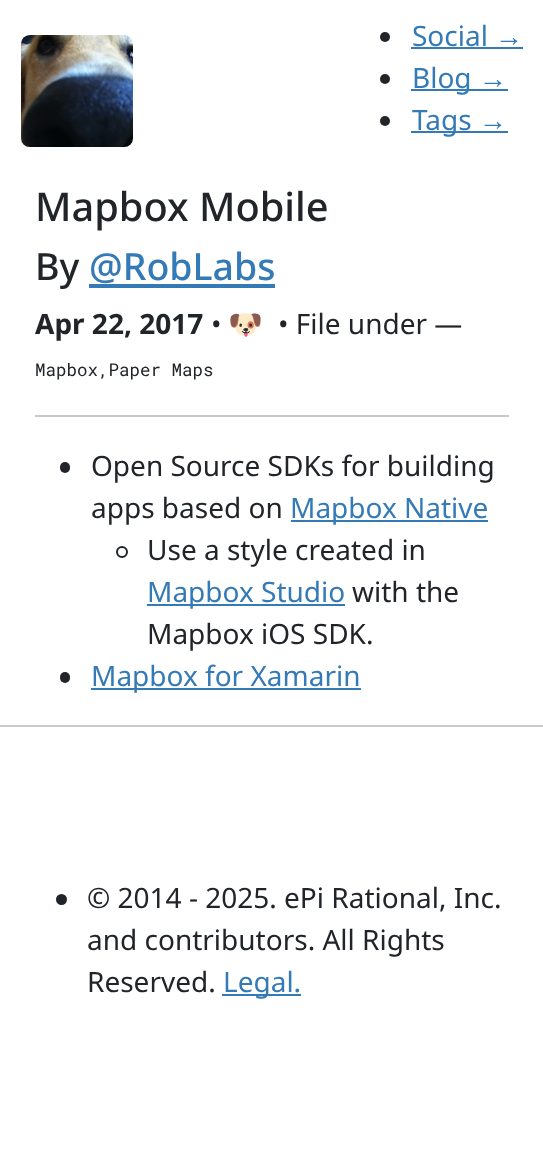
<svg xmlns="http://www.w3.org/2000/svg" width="543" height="1162">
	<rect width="100%" height="100%" fill="#FFFFFF" />
	<image x="21" y="35" width="112" height="112" href="assets/img1.png" />
	<circle cx="385" cy="37" r="5" fill="#212529" />
	<text x="412" y="46" font-family="Noto Sans" font-size="28" fill="#337AB7">Social</text>
	<text x="495" y="46" font-family="Liberation Sans" font-size="28" fill="#337AB7">→</text>
	<rect x="411" y="47" width="112" height="2" fill="#337AB7" />
	<circle cx="385" cy="79" r="5" fill="#212529" />
	<rect x="411" y="89" width="97" height="2" fill="#337AB7" />
	<text x="412" y="88" font-family="Noto Sans" font-size="28" fill="#337AB7">Blog</text>
	<text x="479" y="88" font-family="Liberation Sans" font-size="28" fill="#337AB7">→</text>
	<circle cx="385" cy="121" r="5" fill="#212529" />
	<rect x="411" y="131" width="97" height="2" fill="#337AB7" />
	<text x="412" y="130" font-family="Noto Sans" font-size="28" fill="#337AB7">Tags</text>
	<text x="479" y="130" font-family="Liberation Sans" font-size="28" fill="#337AB7">→</text>
	<text x="35" y="221" font-family="Noto Sans" font-size="39.75" font-weight="500" fill="#212529">Mapbox Mobile</text>
	<text x="35" y="280" font-family="Noto Sans" font-size="37.5" font-weight="500" fill="#212529">By</text>
	<text x="89" y="280" font-family="Noto Sans" font-size="37.5" font-weight="500" fill="#337AB7">@RobLabs</text>
	<rect x="89" y="284" width="186" height="4" fill="#337AB7" />
	<text x="35" y="334" font-family="Noto Sans" font-size="28" font-weight="700" fill="#212529">Apr 22, 2017</text>
	<text x="211" y="334" font-family="Noto Sans" font-size="28" fill="#212529">•</text>
	<text x="228" y="334" font-family="Noto Color Emoji" font-size="28" fill="#212529">🐶</text>
	<text x="278" y="334" font-family="Noto Sans" font-size="28" fill="#212529">• File under —</text>
	<text x="35" y="376" font-family="Roboto Mono" font-size="17.5" fill="#212529">Mapbox,Paper Maps</text>
	<rect x="35" y="415" width="474" height="2" fill="#C8C9CA" />
	<rect x="60" y="462" width="10" height="11" rx="5" fill="#212529" />
	<g font-family="Noto Sans" font-size="28" fill="#212529">
		<text x="91" y="476">Open Source SDKs for building</text>
		<text x="91" y="518">apps based on</text>
	</g>
	<rect x="291" y="520" width="197" height="2" fill="#337AB7" />
	<text x="290" y="518" font-family="Noto Sans" font-size="28" fill="#337AB7">Mapbox Native</text>
	<circle cx="122" cy="552" r="5" fill="none" stroke="#212529" stroke-width="2" />
	<text x="147" y="560" font-family="Noto Sans" font-size="28" fill="#212529">Use a style created in</text>
	<rect x="147" y="604" width="198" height="2" fill="#337AB7" />
	<text x="147" y="602" font-family="Noto Sans" font-size="28" fill="#337AB7">Mapbox Studio</text>
	<g font-family="Noto Sans" font-size="28" fill="#212529">
		<text x="352" y="602">with the</text>
		<text x="147" y="644">Mapbox iOS SDK.</text>
	</g>
	<rect x="60" y="672" width="10" height="11" rx="5" fill="#212529" />
	<rect x="91" y="688" width="270" height="2" fill="#337AB7" />
	<text x="91" y="686" font-family="Noto Sans" font-size="28" fill="#337AB7">Mapbox for Xamarin</text>
	<rect x="0" y="725" width="543" height="2" fill="#C8C9CA" />
	<circle cx="61.5" cy="899.5" r="5.5" fill="#212529" />
	<g font-family="Noto Sans" font-size="28" fill="#212529">
		<text x="87" y="908">© 2014 - 2025. ePi Rational, Inc.</text>
		<text x="87" y="950">and contributors. All Rights</text>
		<text x="87" y="992">Reserved.</text>
	</g>
	<rect x="222" y="994" width="79" height="2" fill="#337AB7" />
	<text x="223" y="992" font-family="Noto Sans" font-size="28" fill="#337AB7">Legal.</text>
</svg>
